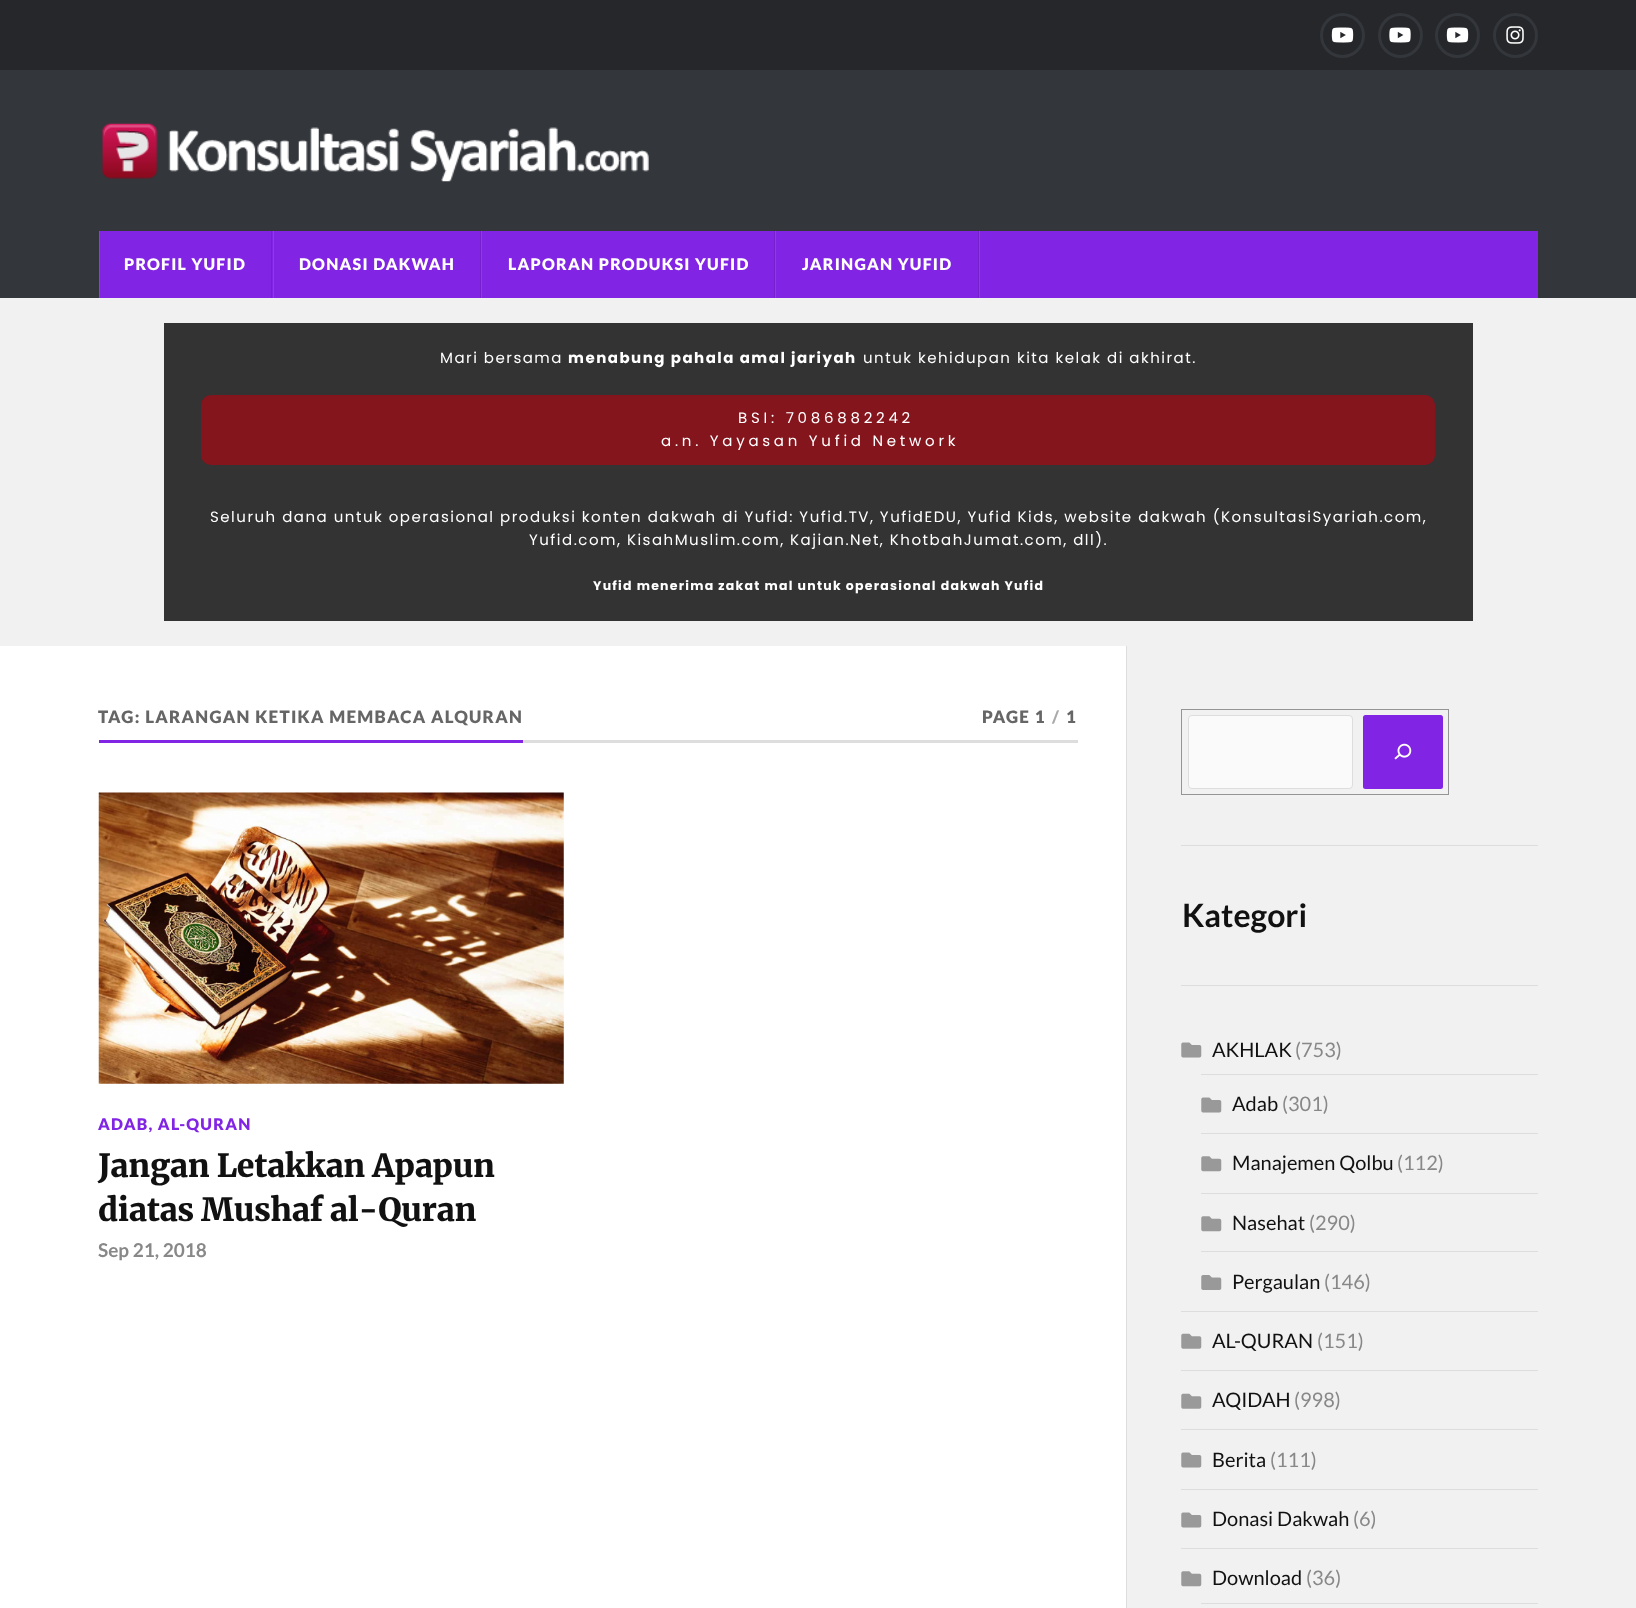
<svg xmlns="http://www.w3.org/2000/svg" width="1636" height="1608">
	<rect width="100%" height="100%" fill="#F1F1F1" />
	<rect x="0" y="0" width="1636" height="70" fill="#26272B" />
	<circle cx="1342.5" cy="35.5" r="21" fill="none" stroke="#33363B" stroke-width="3" />
	<image x="1331" y="27" width="23" height="16" href="assets/img1.png" />
	<circle cx="1400.5" cy="35.5" r="21" fill="none" stroke="#33363B" stroke-width="3" />
	<image x="1389" y="27" width="22" height="16" href="assets/img2.png" />
	<circle cx="1457.5" cy="35.5" r="21" fill="none" stroke="#33363B" stroke-width="3" />
	<image x="1446" y="27" width="23" height="16" href="assets/img1.png" />
	<circle cx="1515.5" cy="35.5" r="21" fill="none" stroke="#33363B" stroke-width="3" />
	<image x="1506" y="26" width="18" height="18" href="assets/img3.png" />
	<rect x="0" y="70" width="1636" height="228" fill="#33363B" />
	<image x="102" y="123" width="547" height="59" href="assets/img4.png" />
	<rect x="100" y="231" width="1438" height="67" fill="#8224E3" />
	<rect x="271" y="231" width="1" height="67" fill="#7520CC" />
	<rect x="99" y="231" width="1" height="67" fill="#8F3AE6" />
	<text x="124" y="270" font-family="Lato" font-size="16" font-weight="900" letter-spacing="1.25" fill="#FFFFFF">PROFIL YUFID</text>
	<rect x="480" y="231" width="1" height="67" fill="#7520CC" />
	<rect x="273" y="231" width="1" height="67" fill="#8F3AE6" />
	<text x="299" y="270" font-family="Lato" font-size="16" font-weight="900" letter-spacing="1.25" fill="#FFFFFF">DONASI DAKWAH</text>
	<rect x="774" y="231" width="1" height="67" fill="#7520CC" />
	<rect x="481" y="231" width="1" height="67" fill="#8F3AE6" />
	<text x="508" y="270" font-family="Lato" font-size="16" font-weight="900" letter-spacing="1.25" fill="#FFFFFF">LAPORAN PRODUKSI YUFID</text>
	<rect x="978" y="231" width="1" height="67" fill="#7520CC" />
	<rect x="775" y="231" width="1" height="67" fill="#8F3AE6" />
	<text x="802" y="270" font-family="Lato" font-size="16" font-weight="900" letter-spacing="1.25" fill="#FFFFFF">JARINGAN YUFID</text>
	<rect x="979" y="231" width="1" height="67" fill="#8F3AE6" />
	<rect x="164" y="323" width="1309" height="298" fill="#333333" />
	<text x="440" y="363" font-family="Poppins" font-size="15" letter-spacing="1.5" fill="#FFFFFF">Mari bersama</text>
	<text x="568" y="363" font-family="Poppins" font-size="15" font-weight="700" letter-spacing="1.5" fill="#FFFFFF">menabung pahala amal jariyah</text>
	<text x="863" y="363" font-family="Poppins" font-size="15" letter-spacing="1.5" fill="#FFFFFF">untuk kehidupan kita kelak di akhirat.</text>
	<rect x="201" y="395" width="1234" height="70" rx="10" fill="#85151D" />
	<g font-family="Poppins" font-size="15" letter-spacing="3.75" fill="#FFFFFF">
		<text x="738" y="423">BSI: 7086882242</text>
		<text x="661" y="446">a.n. Yayasan Yufid Network</text>
	</g>
	<g font-family="Poppins" font-size="15" letter-spacing="1.5" fill="#FFFFFF">
		<text x="210" y="522">Seluruh dana untuk operasional produksi konten dakwah di Yufid: Yufid.TV, YufidEDU, Yufid Kids, website dakwah (KonsultasiSyariah.com,</text>
		<text x="529" y="545">Yufid.com, KisahMuslim.com, Kajian.Net, KhotbahJumat.com, dll).</text>
	</g>
	<text x="593" y="590" font-family="Poppins" font-size="12.5" font-weight="700" letter-spacing="1.25" fill="#FFFFFF">Yufid menerima zakat mal untuk operasional dakwah Yufid</text>
	<rect x="0" y="646" width="1126" height="962" fill="#FFFFFF" />
	<rect x="523" y="740" width="555" height="3" fill="#DDDDDD" />
	<rect x="99" y="740" width="424" height="3" fill="#8224E3" />
	<g font-family="Lato" font-size="17" font-weight="900" letter-spacing="1.25" fill="#666666">
		<text x="98" y="723">TAG: LARANGAN KETIKA MEMBACA ALQURAN</text>
		<text x="982" y="723">PAGE 1</text>
	</g>
	<text x="1052" y="723" font-family="Lato" font-size="17" font-weight="900" letter-spacing="1.25" fill="#AAAAAA">/</text>
	<text x="1066" y="723" font-family="Lato" font-size="17" font-weight="900" letter-spacing="1.25" fill="#666666">1</text>
	<image x="98" y="792" width="466" height="292" href="assets/img5.png" />
	<text x="98" y="1130" font-family="Lato" font-size="16" font-weight="900" letter-spacing="1.25" fill="#8224E3">ADAB, AL-QURAN</text>
	<g font-family="Merriweather" font-size="31.9" font-weight="900" letter-spacing="-0.3" fill="#111111">
		<text x="98" y="1177">Jangan Letakkan Apapun</text>
		<text x="98" y="1221">diatas Mushaf al-Quran</text>
	</g>
	<text x="98" y="1257" font-family="Lato" font-size="19" font-weight="700" fill="#888888">Sep 21, 2018</text>
	<rect x="1126" y="646" width="1" height="962" fill="#DDDDDD" />
	<rect x="1181.5" y="709.5" width="267" height="85" fill="none" stroke="#949494" />
	<rect x="1188.5" y="715.5" width="164" height="73" rx="3.5" fill="#FAFAFA" stroke="#DDDDDD" />
	<rect x="1363" y="715" width="80" height="74" rx="2.5" fill="#8224E3" />
	<image x="1394" y="743" width="18" height="17" href="assets/img6.png" />
	<rect x="1181" y="845" width="357" height="1" fill="#DDDDDD" />
	<text x="1182" y="927" font-family="Lato" font-size="32" font-weight="700" fill="#111111">Kategori</text>
	<rect x="1181" y="985" width="357" height="1" fill="#DDDDDD" />
	<rect x="1181" y="1311" width="357" height="1" fill="#DDDDDD" />
	<image x="1181" y="1042" width="21" height="16" href="assets/img7.png" />
	<text x="1212" y="1057" font-family="Lato" font-size="20" fill="#111111">AKHLAK</text>
	<text x="1295" y="1057" font-family="Lato" font-size="20" fill="#888888">(753)</text>
	<rect x="1201" y="1074" width="337" height="1" fill="#DDDDDD" />
	<rect x="1201" y="1133" width="337" height="1" fill="#DDDDDD" />
	<image x="1201" y="1097" width="21" height="16" href="assets/img7.png" />
	<text x="1232" y="1111" font-family="Lato" font-size="20" fill="#111111">Adab</text>
	<text x="1282" y="1111" font-family="Lato" font-size="20" fill="#888888">(301)</text>
	<rect x="1201" y="1193" width="337" height="1" fill="#DDDDDD" />
	<image x="1201" y="1156" width="21" height="16" href="assets/img8.png" />
	<text x="1232" y="1170" font-family="Lato" font-size="20" fill="#111111">Manajemen Qolbu</text>
	<text x="1397" y="1170" font-family="Lato" font-size="20" fill="#888888">(112)</text>
	<rect x="1201" y="1251" width="337" height="1" fill="#DDDDDD" />
	<image x="1201" y="1216" width="21" height="16" href="assets/img8.png" />
	<text x="1232" y="1230" font-family="Lato" font-size="20" fill="#111111">Nasehat</text>
	<text x="1309" y="1230" font-family="Lato" font-size="20" fill="#888888">(290)</text>
	<image x="1201" y="1275" width="21" height="15" href="assets/img9.png" />
	<text x="1232" y="1289" font-family="Lato" font-size="20" fill="#111111">Pergaulan</text>
	<text x="1324" y="1289" font-family="Lato" font-size="20" fill="#888888">(146)</text>
	<rect x="1181" y="1370" width="357" height="1" fill="#DDDDDD" />
	<image x="1181" y="1333" width="21" height="16" href="assets/img10.png" />
	<text x="1212" y="1348" font-family="Lato" font-size="20" fill="#111111">AL-QURAN</text>
	<text x="1317" y="1348" font-family="Lato" font-size="20" fill="#888888">(151)</text>
	<rect x="1181" y="1429" width="357" height="1" fill="#DDDDDD" />
	<image x="1181" y="1393" width="21" height="16" href="assets/img10.png" />
	<text x="1212" y="1407" font-family="Lato" font-size="20" fill="#111111">AQIDAH</text>
	<text x="1294" y="1407" font-family="Lato" font-size="20" fill="#888888">(998)</text>
	<rect x="1181" y="1489" width="357" height="1" fill="#DDDDDD" />
	<image x="1181" y="1452" width="21" height="16" href="assets/img7.png" />
	<text x="1212" y="1467" font-family="Lato" font-size="20" fill="#111111">Berita</text>
	<text x="1270" y="1467" font-family="Lato" font-size="20" fill="#888888">(111)</text>
	<rect x="1181" y="1548" width="357" height="1" fill="#DDDDDD" />
	<image x="1181" y="1512" width="21" height="16" href="assets/img7.png" />
	<text x="1212" y="1526" font-family="Lato" font-size="20" fill="#111111">Donasi Dakwah</text>
	<text x="1353" y="1526" font-family="Lato" font-size="20" fill="#888888">(6)</text>
	<image x="1181" y="1571" width="21" height="16" href="assets/img8.png" />
	<text x="1212" y="1585" font-family="Lato" font-size="20" fill="#111111">Download</text>
	<text x="1306" y="1585" font-family="Lato" font-size="20" fill="#888888">(36)</text>
	<rect x="1201" y="1603" width="337" height="1" fill="#DDDDDD" />
</svg>
